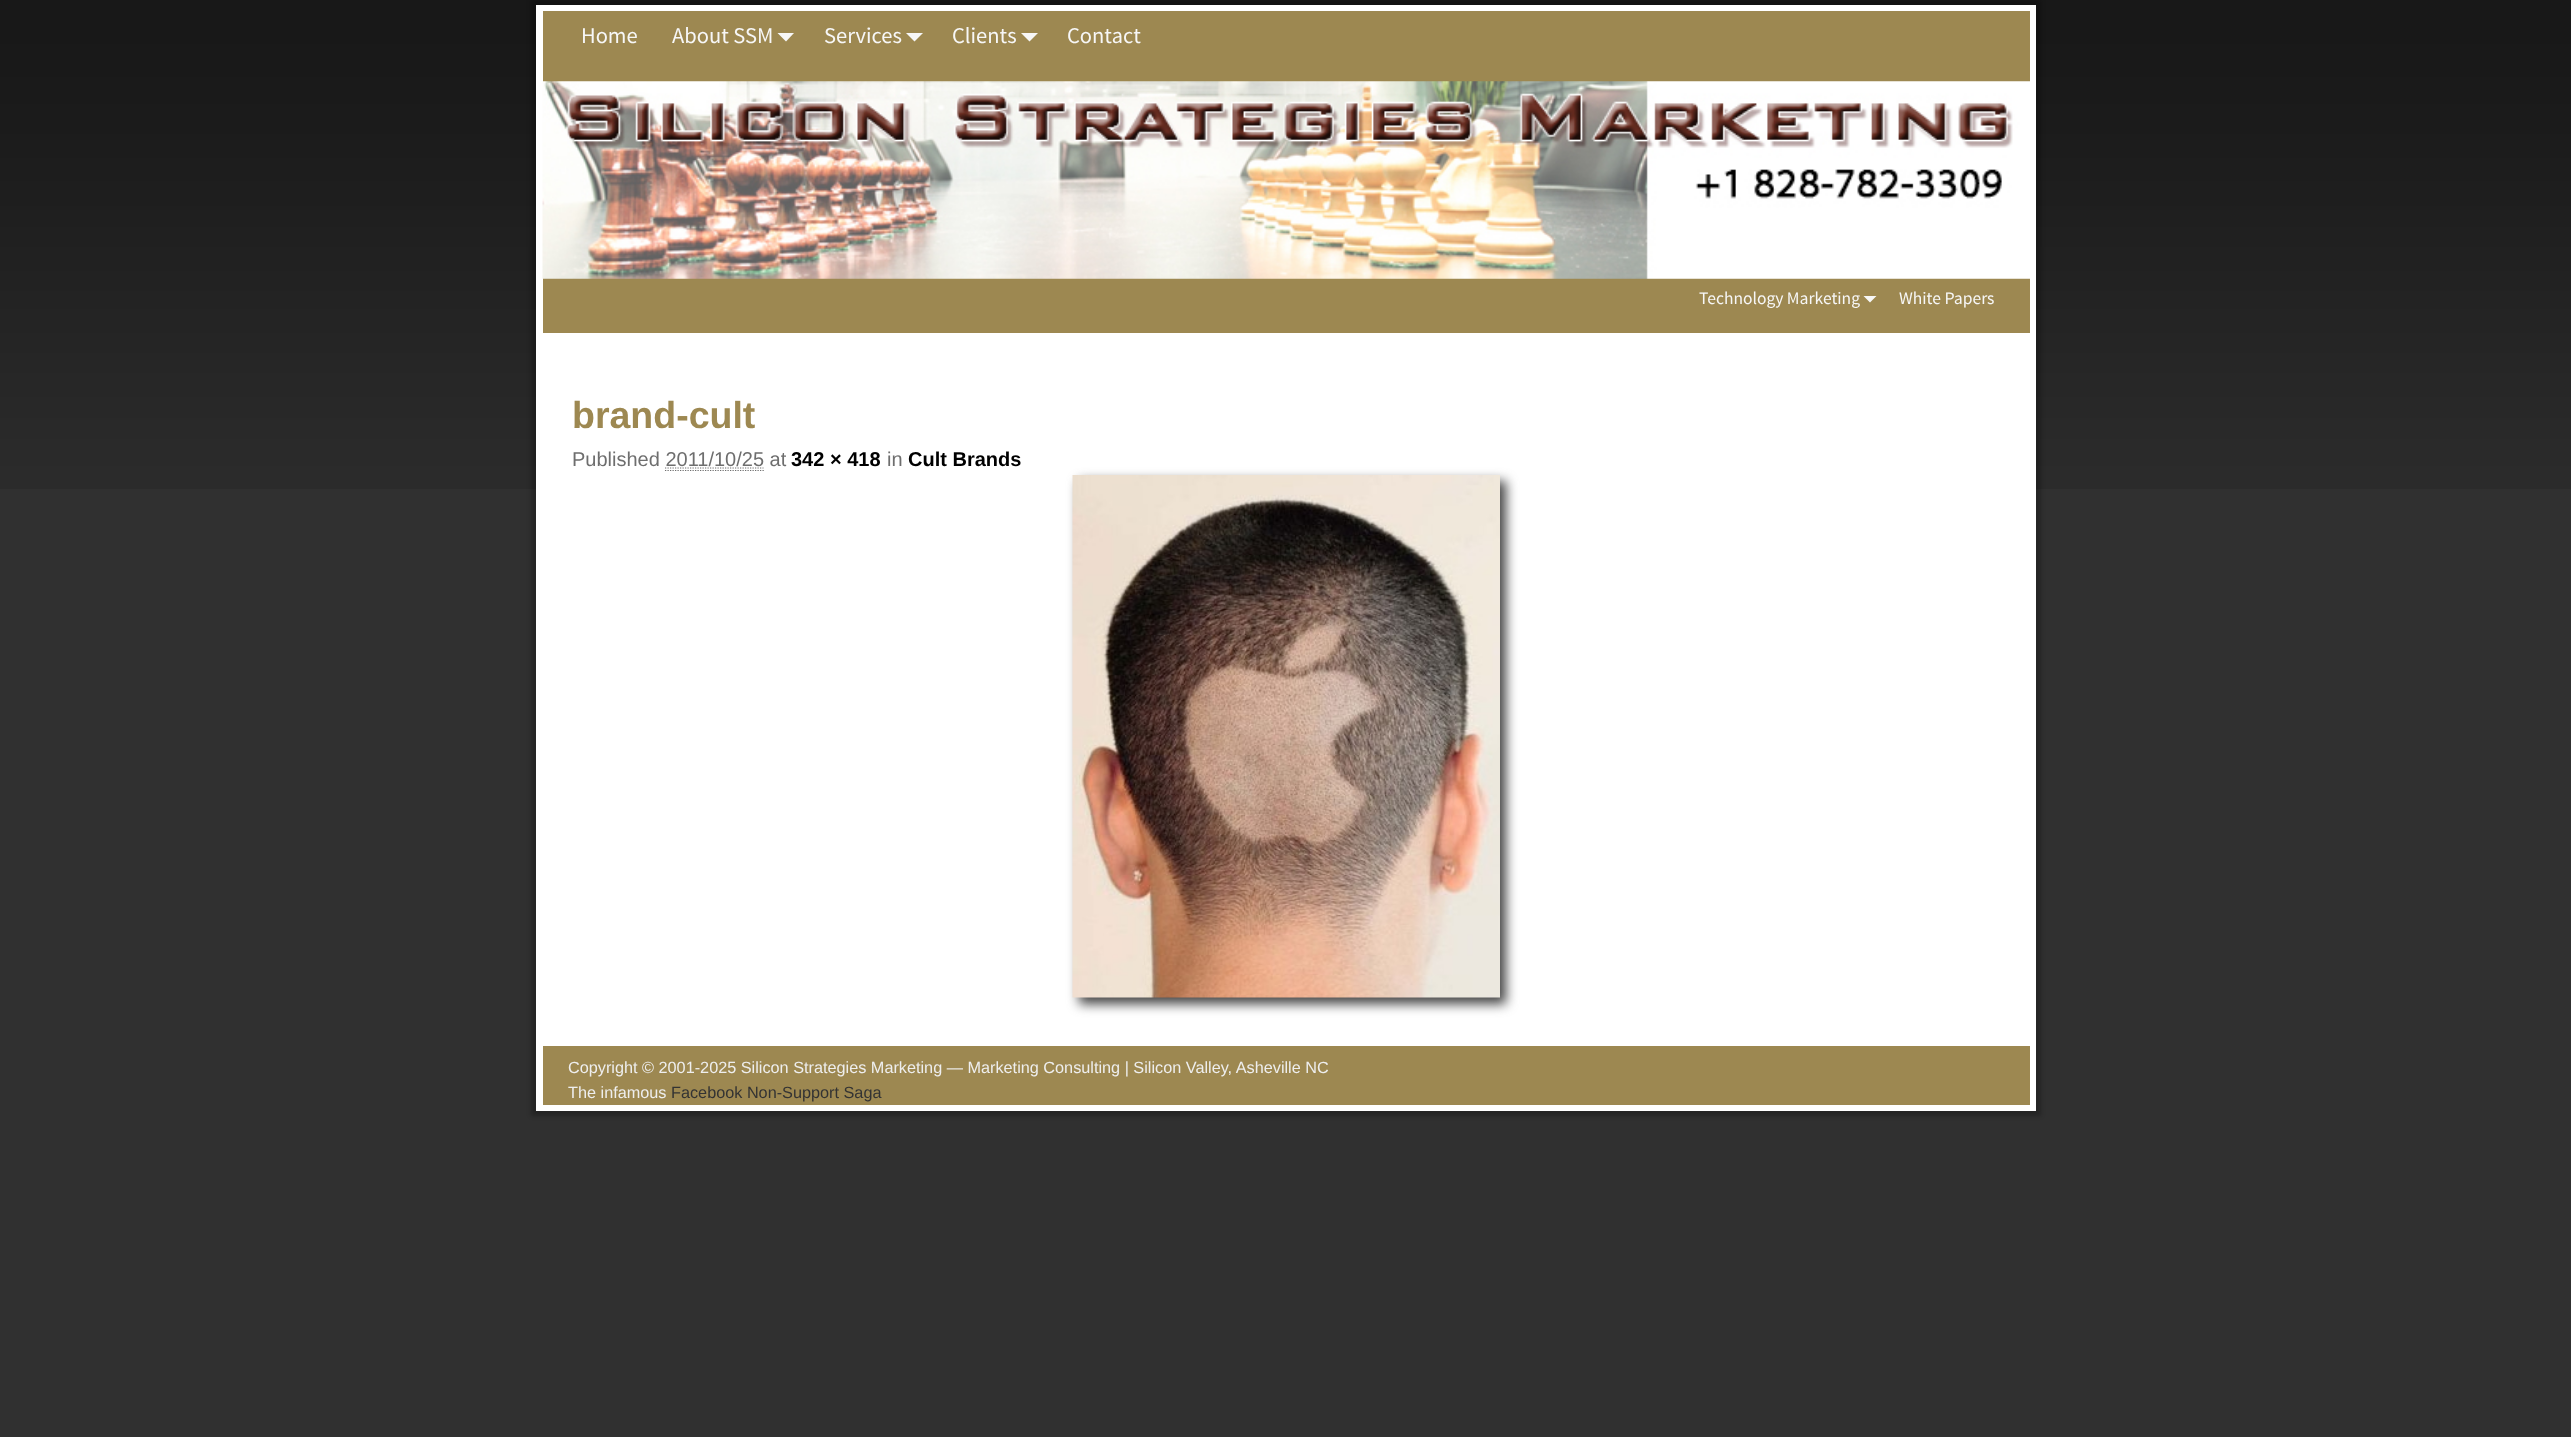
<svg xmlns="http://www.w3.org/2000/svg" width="2571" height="1437">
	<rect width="100%" height="100%" fill="#303030" />
	<image x="0" y="0" width="2571" height="489" href="assets/img1.png" />
	<rect x="531" y="0" width="1510" height="1116" fill="#000000" fill-opacity="0.25" filter="blur(2px)" />
	<rect x="536" y="5" width="1500" height="1106" fill="#FFFFFF" />
	<rect x="543" y="11" width="1487" height="322" fill="#9D8851" />
	<g font-family="Source Sans Pro" font-size="22.5" fill="#F7F7F7">
		<text x="581" y="43">Home</text>
		<text x="672" y="43">About SSM</text>
	</g>
	<path d="M777.5 33H794L786 41.5Z" fill="#F7F7F7" />
	<text x="824" y="43" font-family="Source Sans Pro" font-size="22.5" fill="#F7F7F7">Services</text>
	<path d="M906 33H923L914.5 41.5Z" fill="#F7F7F7" />
	<text x="952" y="43" font-family="Source Sans Pro" font-size="22.5" fill="#F7F7F7">Clients</text>
	<path d="M1021 33H1038L1029.5 41.5Z" fill="#F7F7F7" />
	<text x="1067" y="43" font-family="Source Sans Pro" font-size="22.5" fill="#F7F7F7">Contact</text>
	<image x="542" y="81" width="1488" height="198" href="assets/img2.png" />
	<text x="1699" y="304" font-family="Source Sans Pro" font-size="17.5" fill="#F7F7F7">Technology Marketing</text>
	<path d="M1863.5 296H1876.5L1870 302.5Z" fill="#F7F7F7" />
	<text x="1899" y="304" font-family="Source Sans Pro" font-size="17.5" fill="#F7F7F7">White Papers</text>
	<text x="572" y="428" font-family="Liberation Sans" font-size="37.5" font-weight="700" fill="#9D8851">brand-cult</text>
	<text x="572" y="466" font-family="Liberation Sans" font-size="20" fill="#6E6E6E">Published 2011/10/25 at</text>
	<text x="791" y="466" font-family="Liberation Sans" font-size="20" font-weight="700" fill="#000000">342 × 418</text>
	<text x="887" y="466" font-family="Liberation Sans" font-size="20" fill="#6E6E6E">in</text>
	<text x="908" y="466" font-family="Liberation Sans" font-size="20" font-weight="700" fill="#000000">Cult Brands</text>
	<path d="M665 468H763.5" fill="none" stroke="#6E6E6E" stroke-width="1.2" stroke-dasharray="1.25 1.25" />
	<path d="M665 470.5H764" fill="none" stroke="#6E6E6E" stroke-width="1.2" stroke-dasharray="1.25 1.25" />
	<rect x="1079" y="481" width="427" height="523" fill="#444444" filter="blur(6px)" />
	<image x="1072" y="475" width="428" height="523" href="assets/img3.png" />
	<rect x="543" y="1046" width="1487" height="59" fill="#9D8851" />
	<g font-family="Liberation Sans" font-size="16.25" fill="#EEEEEE">
		<text x="568" y="1073">Copyright © 2001-2025 Silicon Strategies Marketing — Marketing Consulting | Silicon Valley, Asheville NC</text>
		<text x="568" y="1098">The infamous</text>
	</g>
	<text x="671" y="1098" font-family="Liberation Sans" font-size="16.25" fill="#333333">Facebook Non-Support Saga</text>
</svg>
